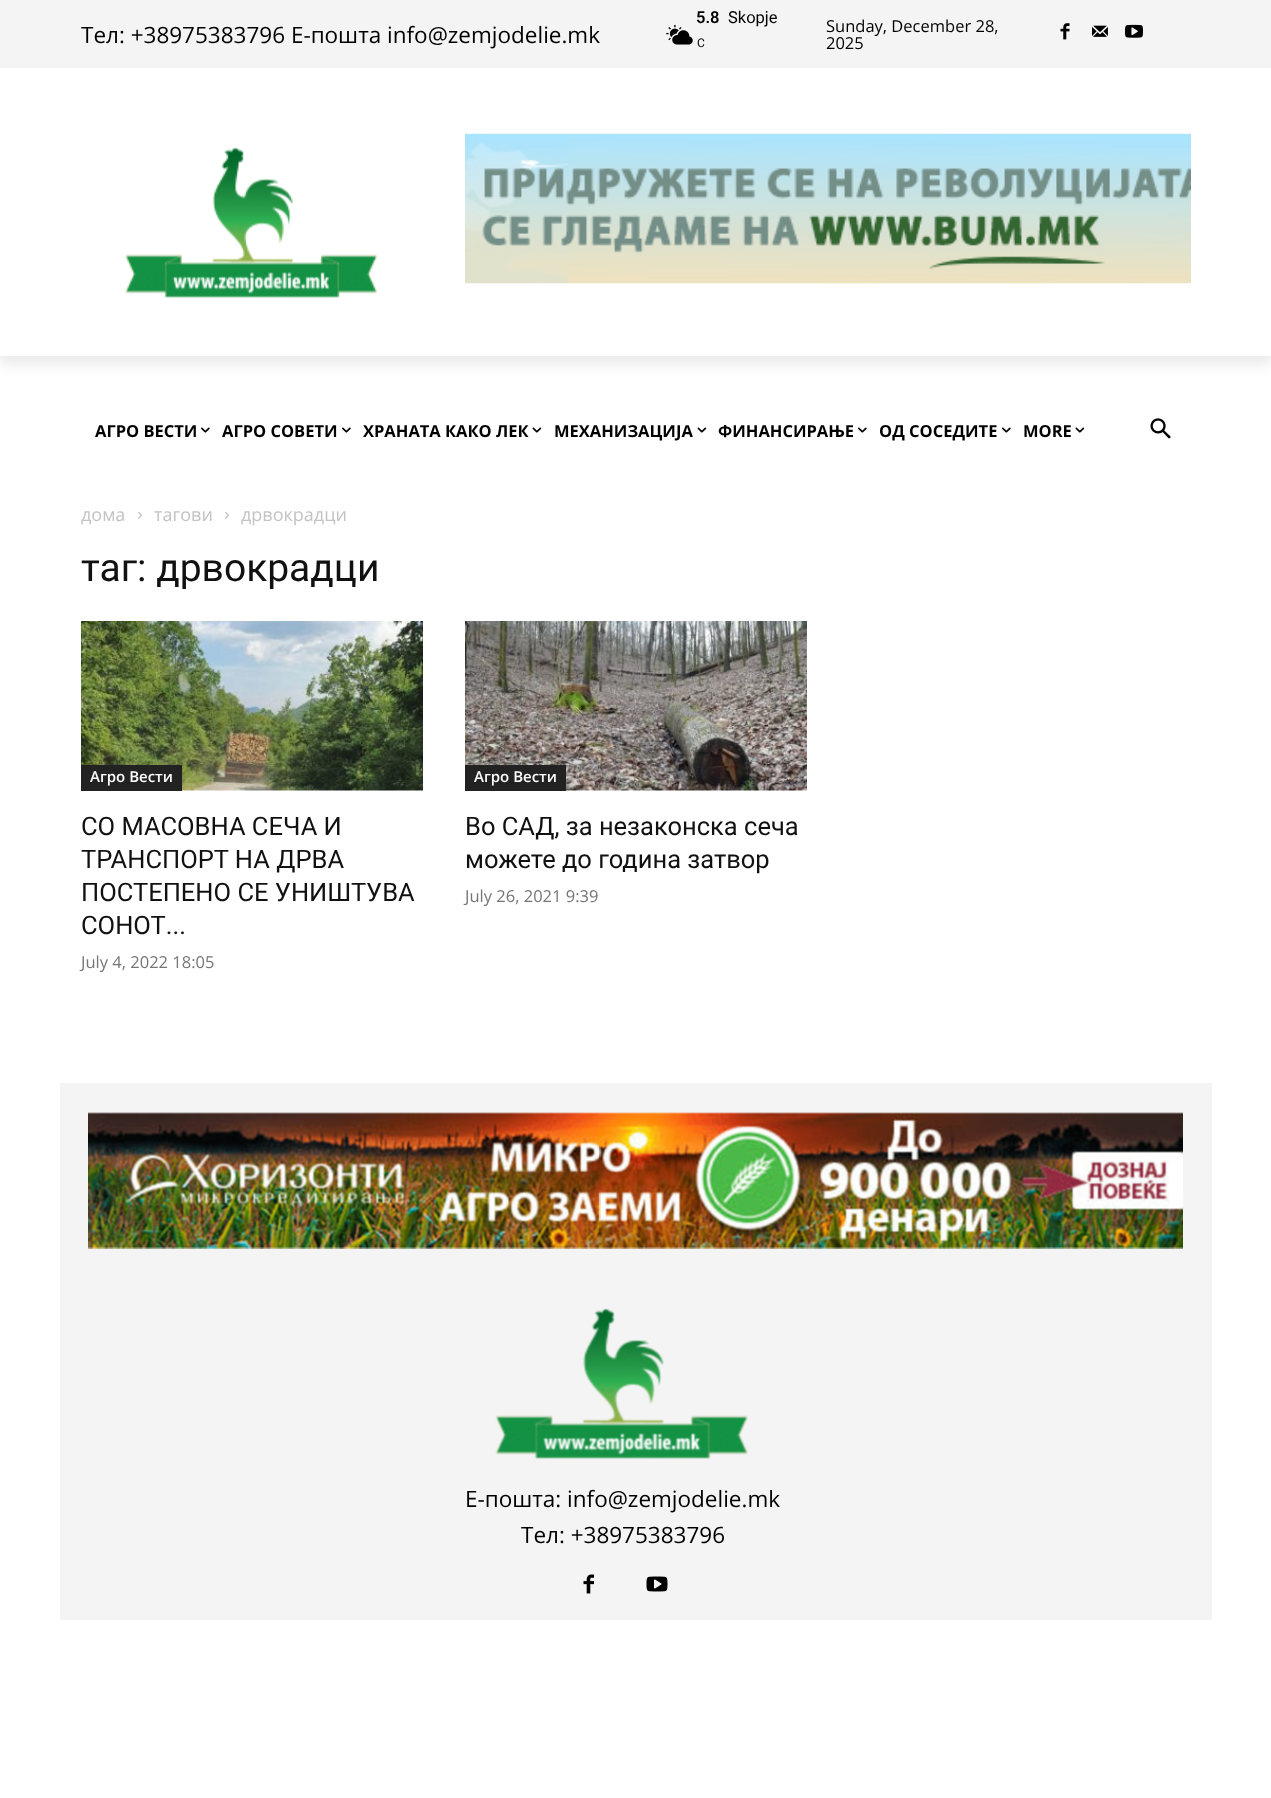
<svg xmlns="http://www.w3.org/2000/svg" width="1271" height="1798">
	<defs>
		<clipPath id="clip1"><path d="M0 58H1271V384H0ZM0 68H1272V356H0Z" clip-rule="evenodd" /></clipPath>
	</defs>
	<rect width="100%" height="100%" fill="#FFFFFF" />
	<rect x="0" y="0" width="1271" height="68" fill="#F4F4F4" />
	<text x="81" y="43" font-family="Open Sans" font-size="22.5" fill="#000000">Тел: +38975383796 Е-пошта info@zemjodelie.mk</text>
	<image x="666" y="24" width="27" height="21" href="assets/img1.png" />
	<text x="696" y="23" font-family="Roboto" font-size="16.5" font-weight="600" fill="#000000">5.8</text>
	<text x="697" y="47" font-family="Roboto" font-size="12" fill="#000000">C</text>
	<text x="728" y="23" font-family="Roboto" font-size="16.5" fill="#000000">Skopje</text>
	<g font-family="Open Sans" font-size="16.5" fill="#000000">
		<text x="826" y="32">Sunday, December 28,</text>
		<text x="826" y="49">2025</text>
	</g>
	<image x="1060" y="23" width="10" height="17" href="assets/img2.png" />
	<image x="1092" y="25" width="16" height="12" href="assets/img3.png" />
	<image x="1125" y="24" width="18" height="14" href="assets/img4.png" />
	<image x="125" y="147" width="252" height="151" href="assets/img5.png" />
	<image x="465" y="133" width="726" height="151" href="assets/img6.png" />
	<g clip-path="url(#clip1)">
		<rect x="0" y="77" width="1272" height="288" fill="#000000" fill-opacity="0.08" filter="blur(6px)" />
	</g>
	<text x="95" y="437" font-family="Open Sans" font-size="16.5" font-weight="700" fill="#000000">АГРО ВЕСТИ</text>
	<image x="201" y="427" width="9" height="6" href="assets/img7.png" />
	<text x="222" y="437" font-family="Open Sans" font-size="16.5" font-weight="700" fill="#000000">АГРО СОВЕТИ</text>
	<image x="342" y="427" width="9" height="6" href="assets/img7.png" />
	<text x="363" y="437" font-family="Open Sans" font-size="16.5" font-weight="700" fill="#000000">ХРАНАТА КАКО ЛЕК</text>
	<image x="532" y="427" width="10" height="6" href="assets/img8.png" />
	<text x="554" y="437" font-family="Open Sans" font-size="16.5" font-weight="700" fill="#000000">МЕХАНИЗАЦИЈА</text>
	<image x="697" y="427" width="10" height="6" href="assets/img8.png" />
	<text x="718" y="437" font-family="Open Sans" font-size="16.5" font-weight="700" fill="#000000">ФИНАНСИРАЊЕ</text>
	<image x="858" y="427" width="9" height="6" href="assets/img7.png" />
	<text x="879" y="437" font-family="Open Sans" font-size="16.5" font-weight="700" fill="#000000">ОД СОСЕДИТЕ</text>
	<image x="1002" y="427" width="9" height="6" href="assets/img7.png" />
	<text x="1023" y="437" font-family="Open Sans" font-size="16.5" font-weight="700" fill="#000000">MORE</text>
	<image x="1075" y="427" width="10" height="6" href="assets/img8.png" />
	<image x="1150" y="418" width="21" height="21" href="assets/img9.png" />
	<text x="81" y="521" font-family="Open Sans" font-size="18" fill="#C3C3C3">дома</text>
	<image x="138" y="512" width="4" height="7" href="assets/img10.png" />
	<text x="154" y="521" font-family="Open Sans" font-size="18" fill="#C3C3C3">тагови</text>
	<image x="225" y="512" width="4" height="7" href="assets/img10.png" />
	<text x="241" y="521" font-family="Open Sans" font-size="18" fill="#C3C3C3">дрвокрадци</text>
	<text x="81" y="581" font-family="Roboto" font-size="39" fill="#111111">таг: дрвокрадци</text>
	<image x="81" y="621" width="342" height="170" href="assets/img11.png" />
	<rect x="81" y="765" width="101" height="26" fill="#222222" />
	<text x="90" y="782" font-family="Open Sans" font-size="15" font-weight="600" fill="#FFFFFF">Агро Вести</text>
	<g font-family="Roboto" font-size="25.5" fill="#111111">
		<text x="81" y="835">СО МАСОВНА СЕЧА И</text>
		<text x="81" y="868">ТРАНСПОРТ НА ДРВА</text>
		<text x="81" y="901">ПОСТЕПЕНО СЕ УНИШТУВА</text>
		<text x="81" y="934">СОНОТ...</text>
	</g>
	<text x="81" y="968" font-family="Open Sans" font-size="16.5" fill="#767676">July 4, 2022 18:05</text>
	<image x="465" y="621" width="342" height="170" href="assets/img12.png" />
	<rect x="465" y="765" width="101" height="26" fill="#222222" />
	<text x="474" y="782" font-family="Open Sans" font-size="15" font-weight="600" fill="#FFFFFF">Агро Вести</text>
	<g font-family="Roboto" font-size="25.5" fill="#111111">
		<text x="465" y="835">Во САД, за незаконска сеча</text>
		<text x="465" y="868">можете до година затвор</text>
	</g>
	<text x="465" y="902" font-family="Open Sans" font-size="16.5" fill="#767676">July 26, 2021 9:39</text>
	<rect x="60" y="1083" width="1152" height="537" fill="#F4F4F4" />
	<image x="88" y="1112" width="1095" height="137" href="assets/img13.png" />
	<image x="495" y="1308" width="253" height="151" href="assets/img14.png" />
	<g font-family="Open Sans" font-size="22.5" fill="#000000">
		<text x="465" y="1507">Е-пошта: info@zemjodelie.mk</text>
		<text x="521" y="1543">Тел: +38975383796</text>
	</g>
	<image x="583" y="1574" width="11" height="20" href="assets/img15.png" />
	<image x="646" y="1576" width="22" height="16" href="assets/img16.png" />
</svg>
